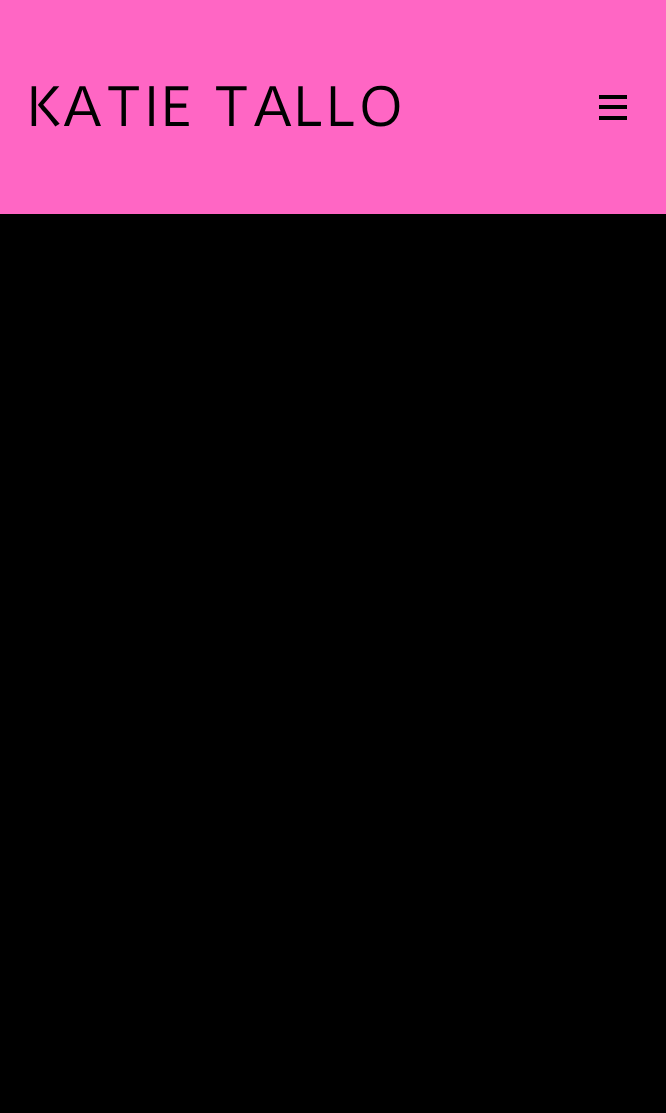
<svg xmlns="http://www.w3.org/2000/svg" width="666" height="1113">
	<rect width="100%" height="100%" fill="#000000" />
	<rect x="0" y="0" width="666" height="214" fill="#FF66C4" />
	<text x="26" y="126" font-family="Duru Sans" font-size="52.5" letter-spacing="1.75" fill="#000000">KATIE TALLO</text>
	<rect x="599" y="95" width="28" height="4" fill="#000000" />
	<rect x="599" y="105" width="28" height="4" fill="#000000" />
	<rect x="599" y="116" width="28" height="4" fill="#000000" />
</svg>
